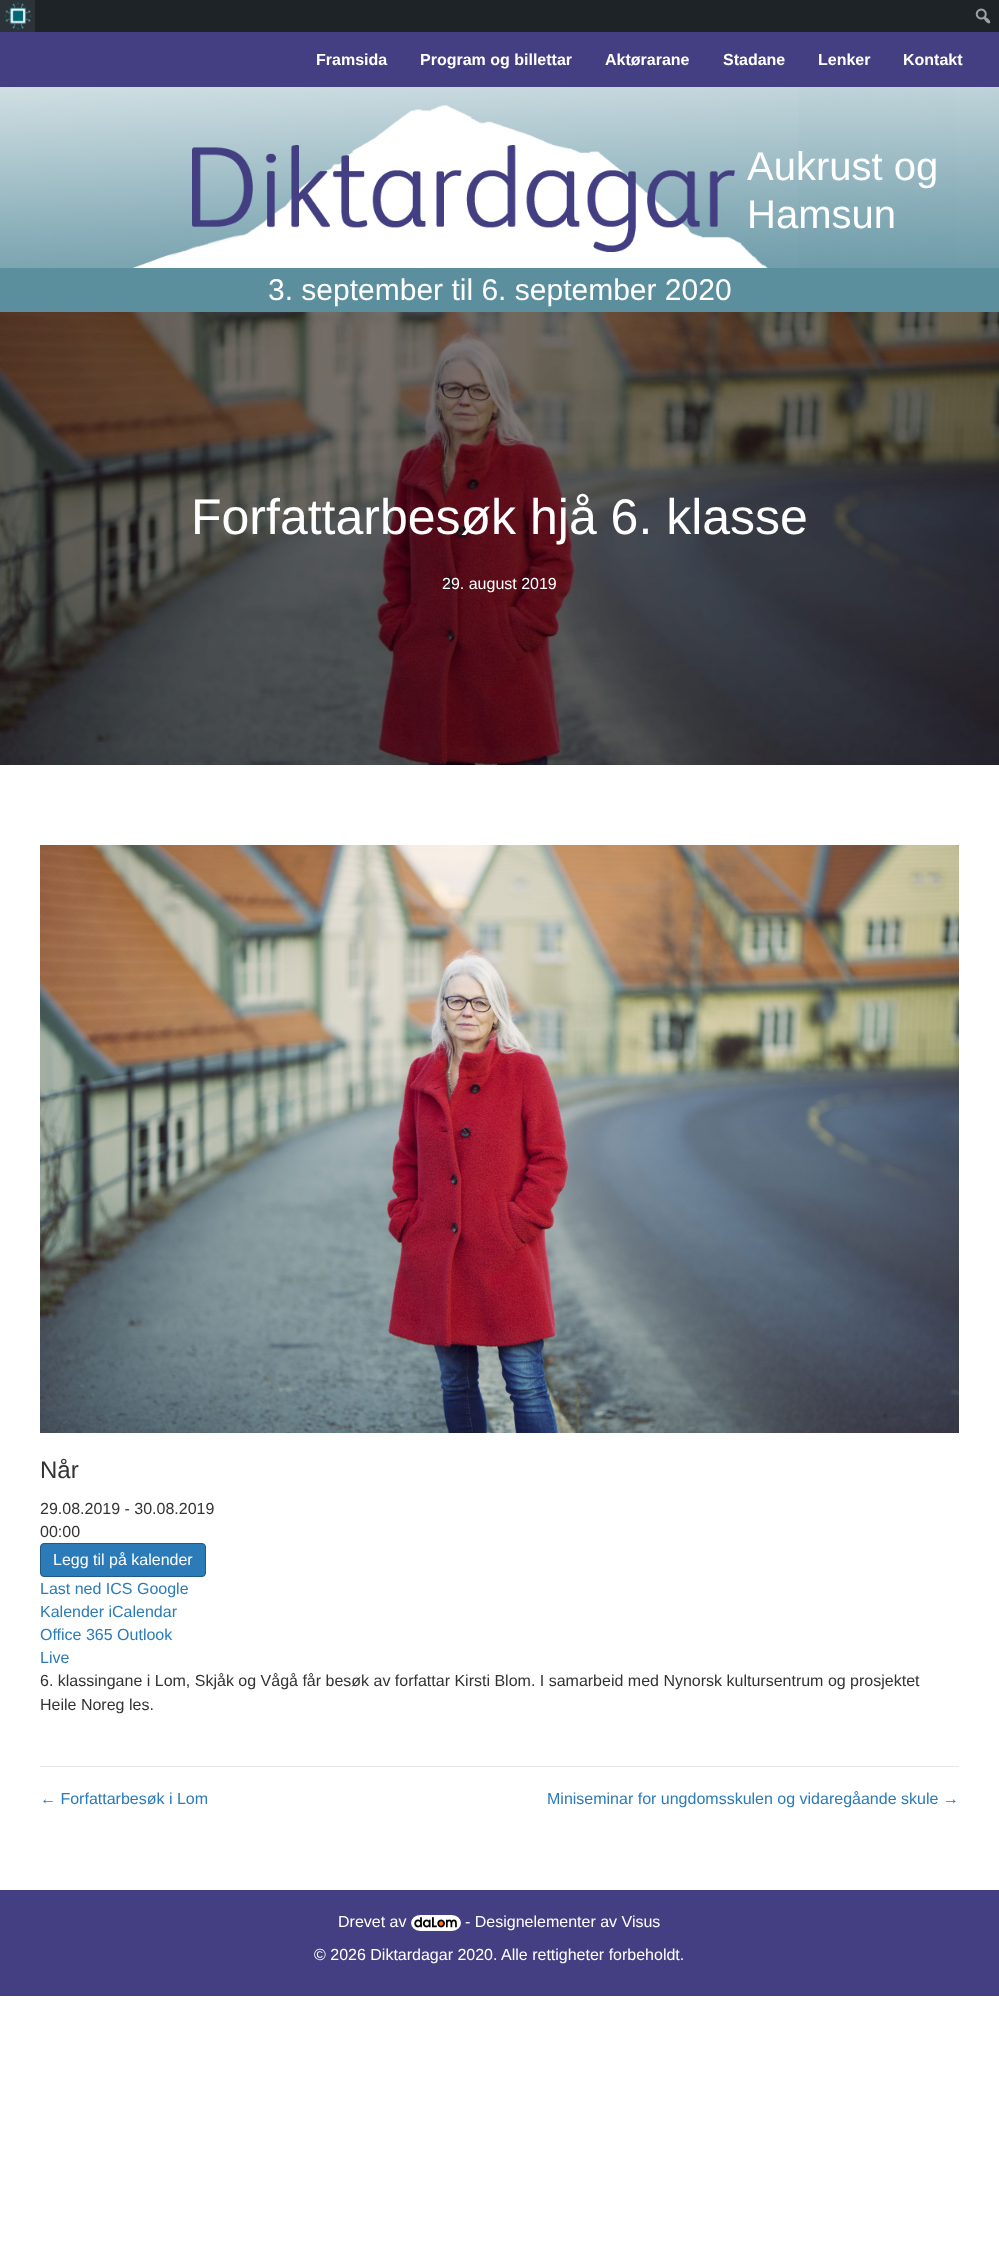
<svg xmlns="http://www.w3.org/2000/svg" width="999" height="2256">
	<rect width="100%" height="100%" fill="#FFFFFF" />
	<rect x="35" y="0" width="964" height="32" fill="#1D2327" />
	<rect x="0" y="0" width="35" height="32" fill="#2C3338" />
	<image x="4" y="2" width="28" height="28" href="assets/img1.png" />
	<image x="975" y="8" width="16" height="16" href="assets/img2.png" />
	<rect x="0" y="32" width="999" height="55" fill="#443F82" />
	<g font-family="Liberation Sans" font-size="16" font-weight="700" fill="#FFFFFF">
		<text x="316" y="65">Framsida</text>
		<text x="420" y="65">Program og billettar</text>
		<text x="605" y="65">Aktørarane</text>
		<text x="723" y="65">Stadane</text>
		<text x="818" y="65">Lenker</text>
		<text x="903" y="65">Kontakt</text>
	</g>
	<image x="0" y="87" width="999" height="181" href="assets/img3.png" />
	<g font-family="Liberation Sans" font-size="40" fill="#FFFFFF">
		<text x="747" y="180">Aukrust og</text>
		<text x="747" y="228">Hamsun</text>
	</g>
	<rect x="0" y="268" width="999" height="44" fill="#5B8F9E" />
	<text x="268" y="300" font-family="Liberation Sans" font-size="30" fill="#FFFFFF">3. september til 6. september 2020</text>
	<image x="0" y="312" width="999" height="453" href="assets/img4.png" />
	<text x="191" y="534" font-family="Liberation Sans" font-size="50" fill="#FFFFFF">Forfattarbesøk hjå 6. klasse</text>
	<text x="442" y="589" font-family="Liberation Sans" font-size="16" fill="#FFFFFF">29. august 2019</text>
	<image x="40" y="845" width="919" height="588" href="assets/img5.png" />
	<text x="40" y="1478" font-family="Liberation Sans" font-size="24" fill="#333333">Når</text>
	<g font-family="Liberation Sans" font-size="16" fill="#333333">
		<text x="40" y="1514">29.08.2019 - 30.08.2019</text>
		<text x="40" y="1537">00:00</text>
	</g>
	<rect x="40.5" y="1543.5" width="165" height="33" rx="3.5" fill="#2B7BB9" stroke="#1F5A87" />
	<text x="53" y="1565" font-family="Liberation Sans" font-size="16" fill="#FFFFFF">Legg til på kalender</text>
	<g font-family="Liberation Sans" font-size="16" fill="#2B7BB9">
		<text x="40" y="1594">Last ned ICS Google</text>
		<text x="40" y="1617">Kalender iCalendar</text>
		<text x="40" y="1640">Office 365 Outlook</text>
		<text x="40" y="1663">Live</text>
	</g>
	<g font-family="Liberation Sans" font-size="16" fill="#333333">
		<text x="40" y="1686">6. klassingane i Lom, Skjåk og Vågå får besøk av forfattar Kirsti Blom. I samarbeid med Nynorsk kultursentrum og prosjektet</text>
		<text x="40" y="1710">Heile Noreg les.</text>
	</g>
	<rect x="40" y="1766" width="919" height="1" fill="#E8E8E8" />
	<g font-family="Liberation Sans" font-size="16" fill="#2B7BB9">
		<text x="40" y="1804">← Forfattarbesøk i Lom</text>
		<text x="547" y="1804">Miniseminar for ungdomsskulen og vidaregåande skule →</text>
	</g>
	<rect x="0" y="1890" width="999" height="106" fill="#443F82" />
	<text x="338" y="1927" font-family="Liberation Sans" font-size="16" fill="#FFFFFF">Drevet av</text>
	<image x="411" y="1915" width="50" height="16" href="assets/img6.png" />
	<g font-family="Liberation Sans" font-size="16" fill="#FFFFFF">
		<text x="465" y="1927">- Designelementer av Visus</text>
		<text x="314" y="1960">© 2026 Diktardagar 2020. Alle rettigheter forbeholdt.</text>
	</g>
</svg>
